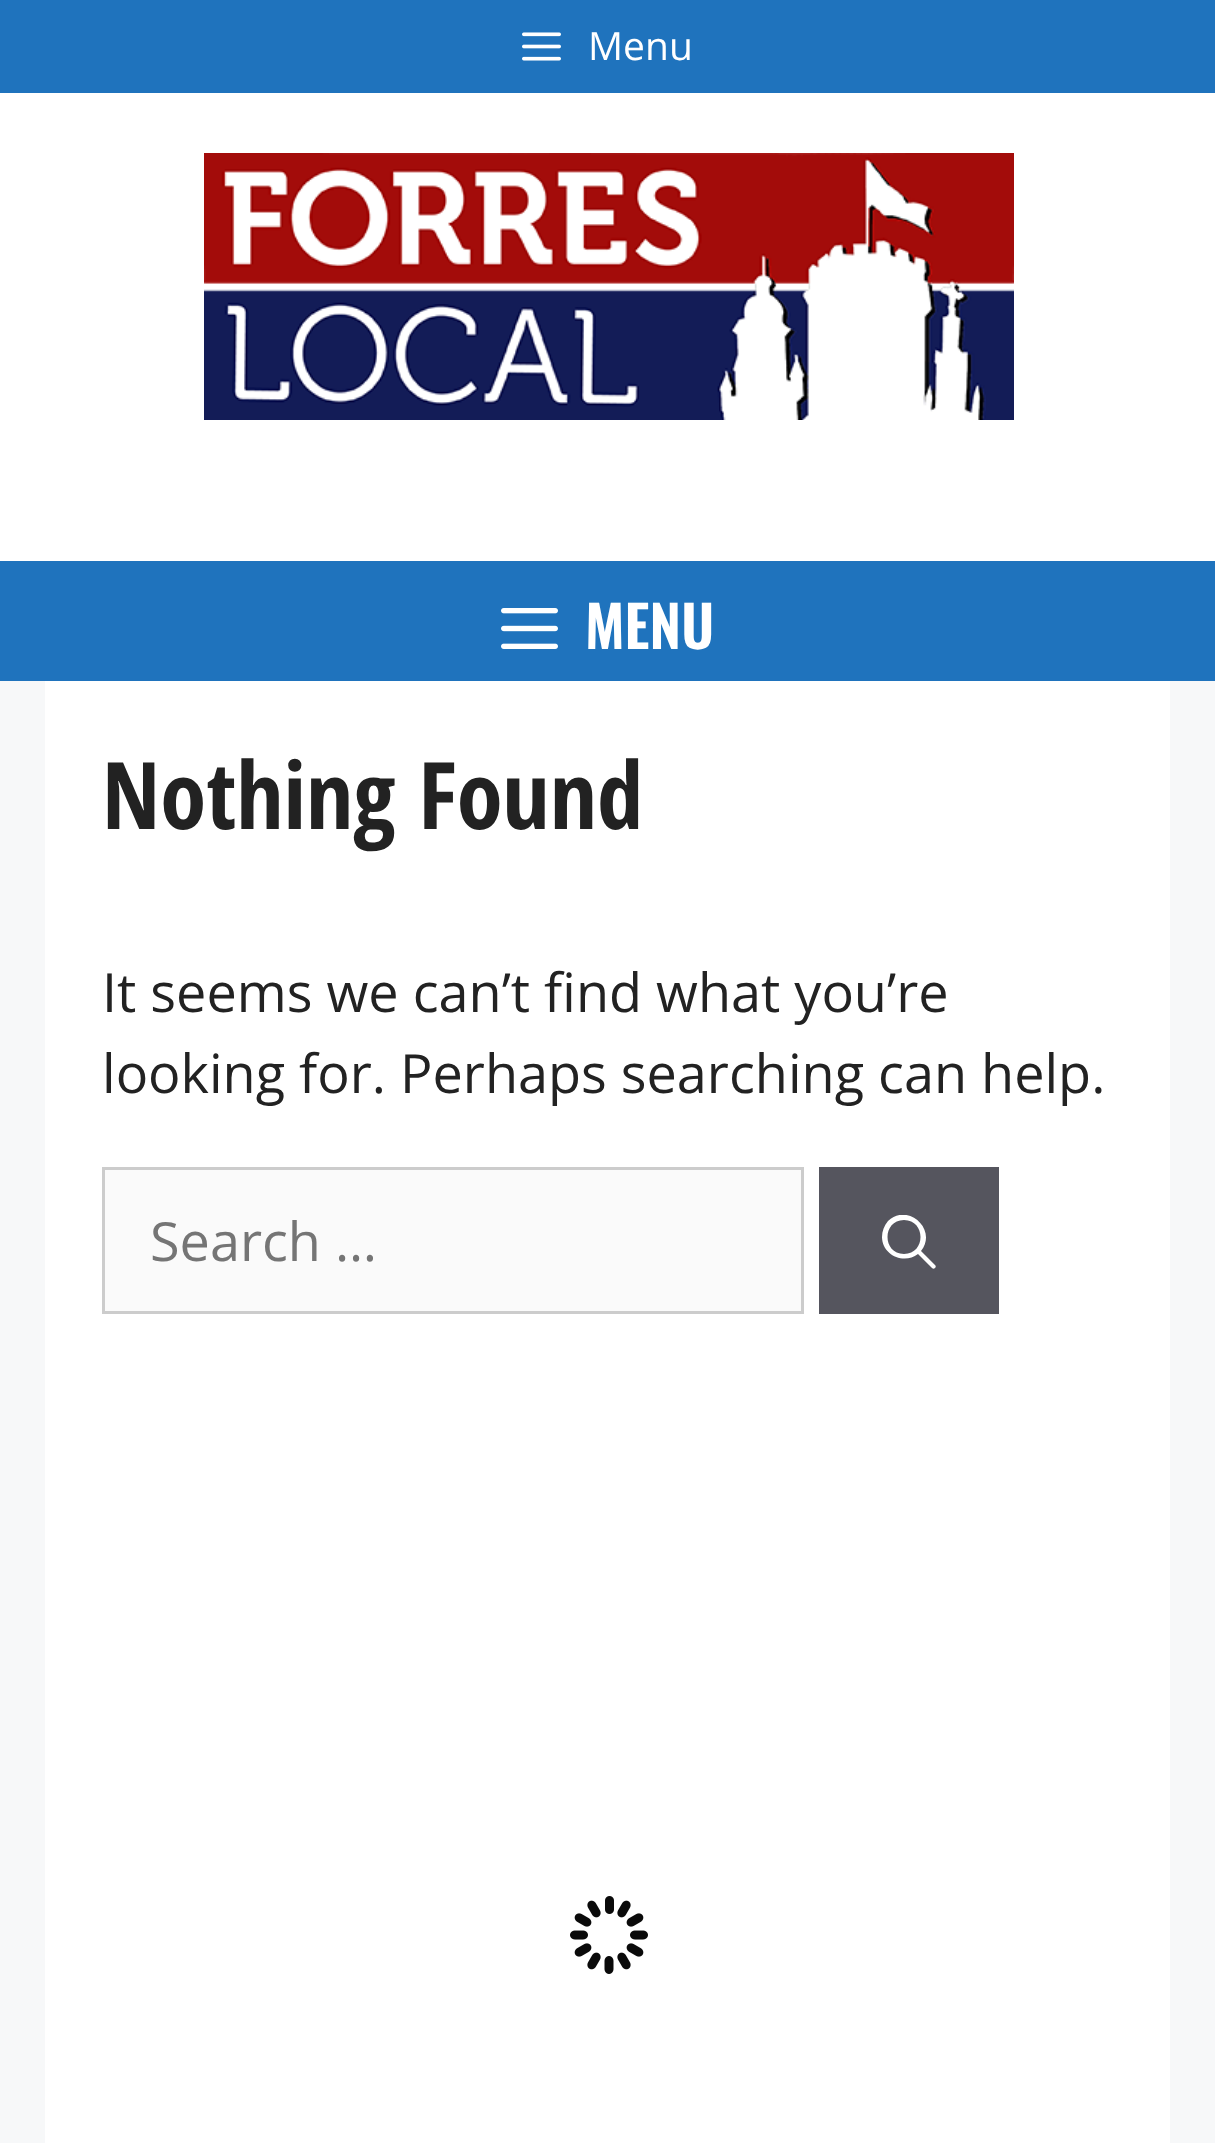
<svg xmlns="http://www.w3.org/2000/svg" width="1215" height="2143">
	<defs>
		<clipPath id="clip1"><rect x="882" y="1215" width="54" height="54" /></clipPath>
	</defs>
	<rect width="100%" height="100%" fill="#F7F8F9" />
	<rect x="0" y="0" width="1215" height="93" fill="#1F73BD" />
	<image x="522" y="32" width="39" height="29" href="assets/img1.png" />
	<text x="588" y="60" font-family="Open Sans" font-size="39" fill="#FFFFFF">Menu</text>
	<rect x="0" y="93" width="1215" height="468" fill="#FFFFFF" />
	<image x="204" y="153" width="810" height="267" href="assets/img2.png" />
	<rect x="0" y="561" width="1215" height="120" fill="#1F73BD" />
	<image x="501" y="608" width="57" height="41" href="assets/img3.png" />
	<text x="585" y="649" font-family="Oswald" font-size="57" font-weight="600" fill="#FFFFFF">MENU</text>
	<rect x="45" y="681" width="1125" height="1462" fill="#FFFFFF" />
	<text x="102" y="829" font-family="Open Sans Condensed" font-size="93" font-weight="700" fill="#222222">Nothing Found</text>
	<g font-family="Open Sans" font-size="54" fill="#222222">
		<text x="102" y="1012">It seems we can’t find what you’re</text>
		<text x="102" y="1093">looking for. Perhaps searching can help.</text>
	</g>
	<rect x="103.5" y="1168.5" width="699" height="144" fill="#FAFAFA" stroke="#CCCCCC" stroke-width="3" />
	<text x="150" y="1261" font-family="Open Sans" font-size="54" fill="#757575">Search …</text>
	<rect x="819" y="1167" width="180" height="147" fill="#55555E" />
	<g clip-path="url(#clip1)">
		<path d="M904 1220C882 1220 882 1254 904 1254C926 1254 926 1220 904 1220ZM882 1237C882 1231 884 1226 888 1221C908 1202 938 1230 921 1251L935 1265C936 1266 936 1267 935 1268C934 1269 933 1269 932 1268L918 1254C904 1265 882 1255 882 1237Z" fill="#FFFFFF" fill-rule="evenodd" />
	</g>
	<image x="570" y="1896" width="78" height="78" href="assets/img4.png" />
</svg>
